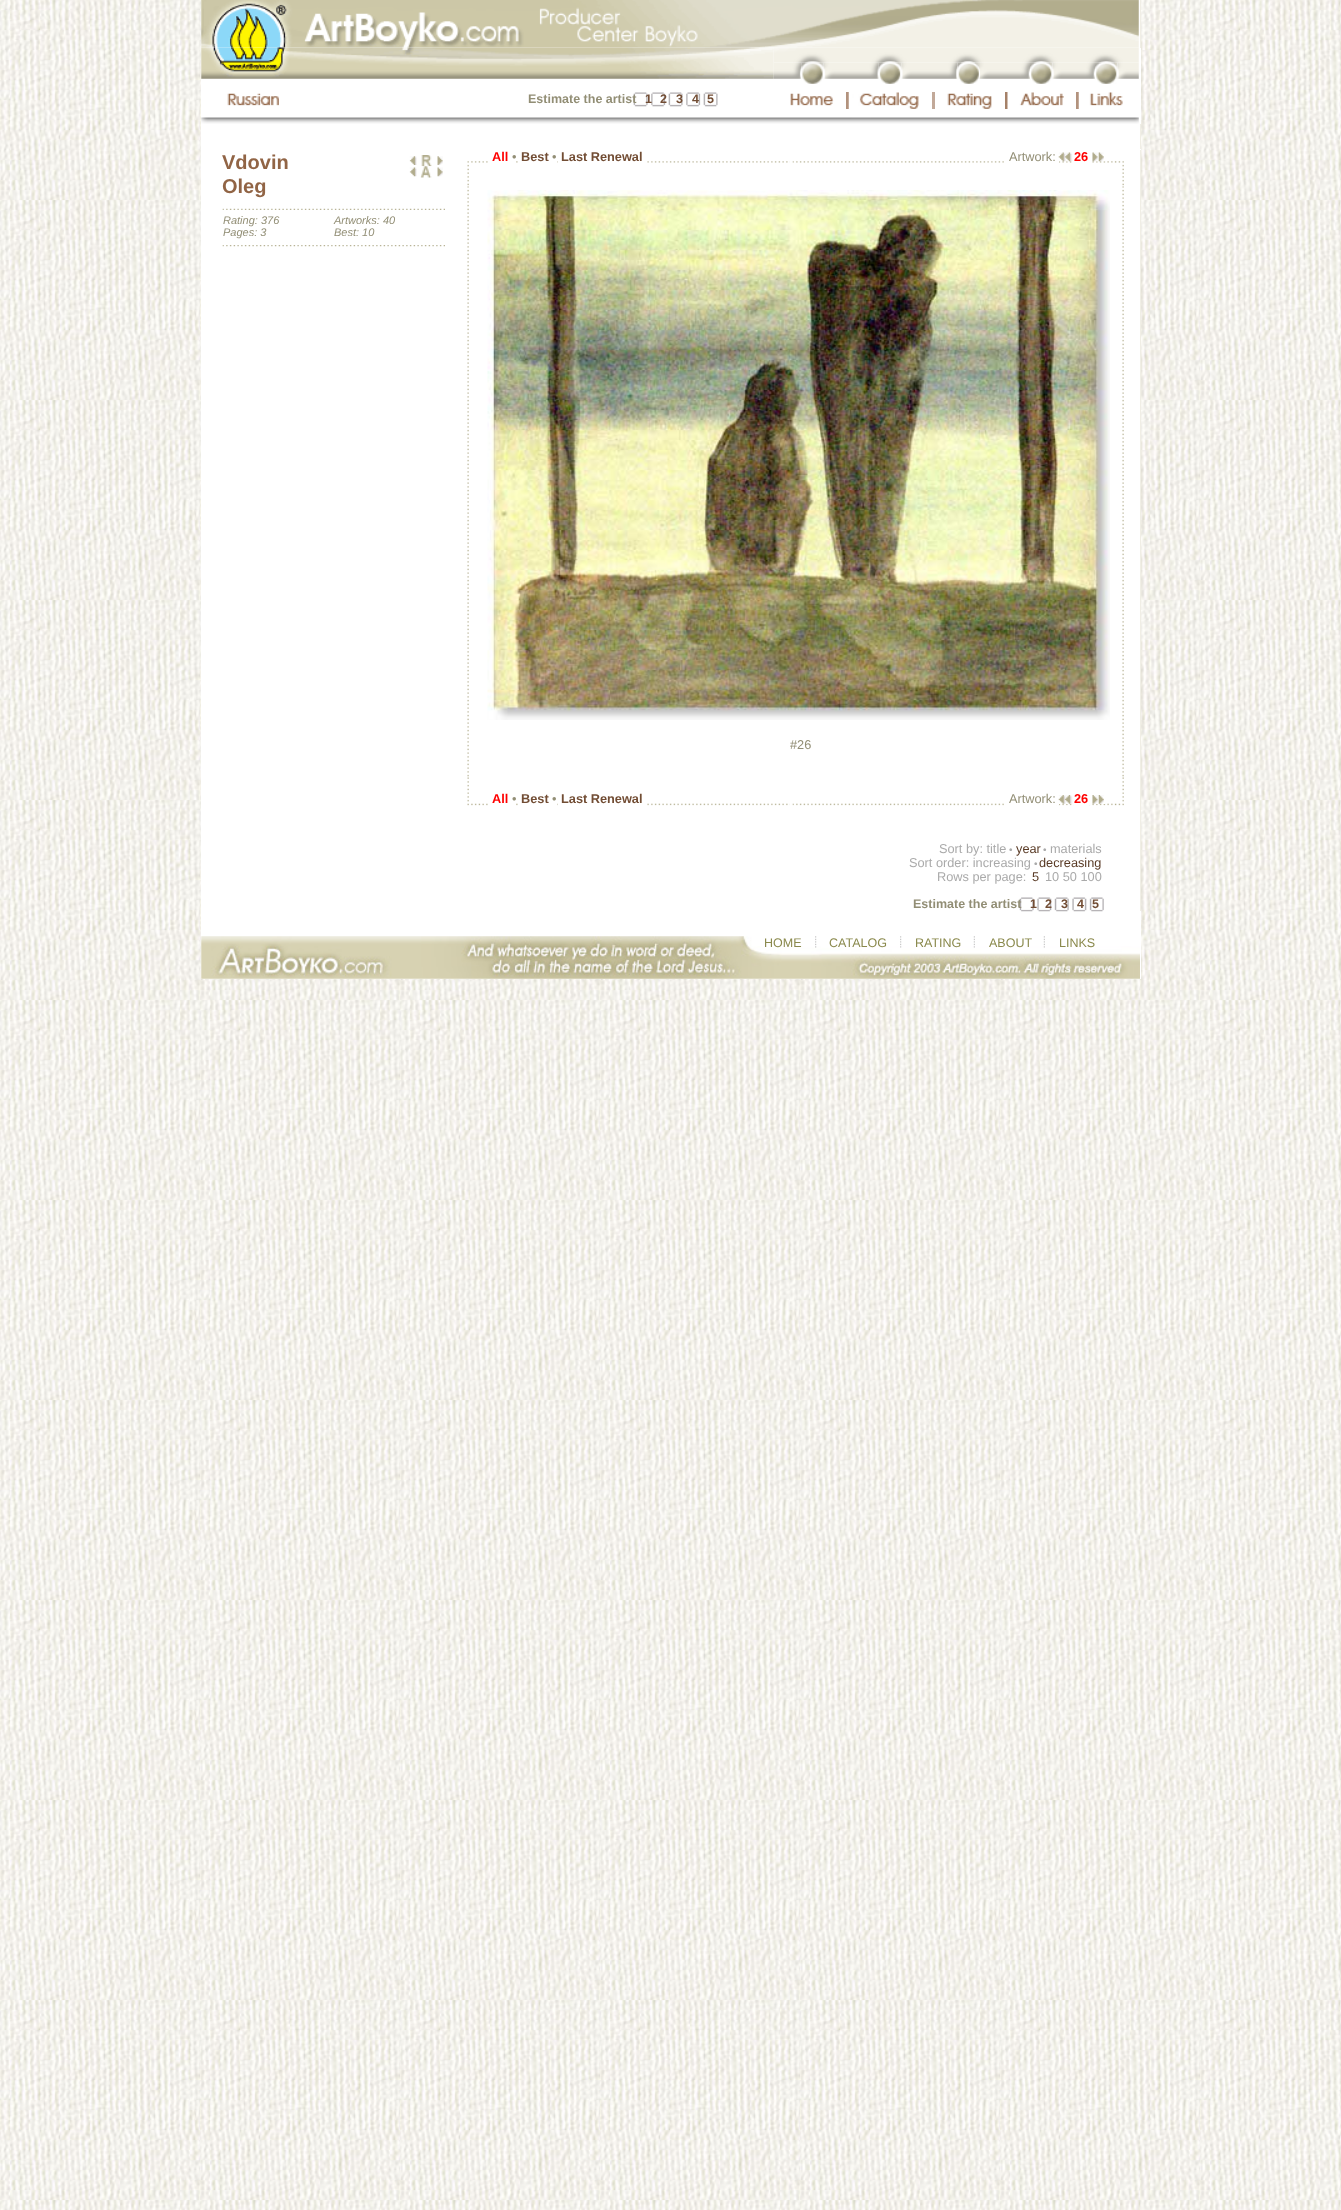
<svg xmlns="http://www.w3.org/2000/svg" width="1341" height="2210">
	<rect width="100%" height="100%" fill="#FFFFFF" />
	<image x="0" y="0" width="1341" height="2210" href="assets/img1.png" />
	<rect x="201" y="0" width="940" height="979" fill="#FFFFFF" />
	<image x="201" y="0" width="938" height="48" href="assets/img2.png" />
	<rect x="1140" y="0" width="1" height="48" fill="#F0EEE5" />
	<image x="201" y="47" width="573" height="32" href="assets/img3.png" />
	<image x="774" y="47" width="365" height="16" href="assets/img4.png" />
	<image x="773" y="62" width="29" height="17" href="assets/img5.png" />
	<image x="801" y="62" width="23" height="22" href="assets/img6.png" />
	<image x="823" y="62" width="56" height="17" href="assets/img7.png" />
	<image x="878" y="62" width="24" height="22" href="assets/img8.png" />
	<image x="901" y="62" width="57" height="17" href="assets/img9.png" />
	<image x="957" y="62" width="23" height="22" href="assets/img10.png" />
	<image x="980" y="62" width="50" height="17" href="assets/img11.png" />
	<image x="1030" y="62" width="23" height="22" href="assets/img12.png" />
	<image x="1052" y="62" width="43" height="17" href="assets/img13.png" />
	<image x="1095" y="62" width="23" height="22" href="assets/img14.png" />
	<image x="1117" y="62" width="22" height="17" href="assets/img15.png" />
	<image x="227" y="93" width="52" height="13" href="assets/img16.png" />
	<image x="790" y="93" width="44" height="13" href="assets/img17.png" />
	<rect x="846" y="92" width="3" height="17" fill="#B2927D" />
	<image x="848" y="92" width="71" height="17" href="assets/img18.png" />
	<rect x="932" y="92" width="3" height="17" fill="#C2A999" />
	<image x="947" y="93" width="45" height="16" href="assets/img19.png" />
	<rect x="1005" y="92" width="3" height="17" fill="#A58168" />
	<image x="1007" y="92" width="57" height="17" href="assets/img20.png" />
	<rect x="1076" y="92" width="3" height="17" fill="#B2927D" />
	<image x="1078" y="92" width="45" height="17" href="assets/img21.png" />
	<image x="633" y="92" width="85" height="15" href="assets/img22.png" />
	<text x="528" y="103" font-family="Liberation Sans" font-size="12.5" font-weight="700" fill="#928E75">Estimate the artist</text>
	<g font-family="Liberation Sans" font-size="12.5" font-weight="700" fill="#724D34">
		<text x="645" y="103">1</text>
		<text x="660" y="103">2</text>
		<text x="676" y="103">3</text>
		<text x="692" y="103">4</text>
		<text x="707" y="103">5</text>
	</g>
	<image x="201" y="117" width="938" height="7" href="assets/img23.png" />
	<rect x="1140" y="124" width="1" height="25" fill="#F0EEE5" />
	<g font-family="Liberation Sans" font-size="20" font-weight="700" fill="#916445">
		<text x="222" y="169">Vdovin</text>
		<text x="222" y="193">Oleg</text>
	</g>
	<image x="409" y="156" width="8" height="9" href="assets/img24.png" />
	<image x="421" y="155" width="11" height="12" href="assets/img25.png" />
	<image x="437" y="156" width="6" height="9" href="assets/img26.png" />
	<image x="409" y="167" width="8" height="10" href="assets/img27.png" />
	<image x="420" y="166" width="12" height="12" href="assets/img28.png" />
	<image x="437" y="167" width="6" height="10" href="assets/img29.png" />
	<image x="222" y="208" width="223" height="2" href="assets/img30.png" />
	<g font-family="Liberation Sans" font-size="11" font-style="italic" fill="#928E75">
		<text x="223" y="224">Rating: 376</text>
		<text x="223" y="236">Pages: 3</text>
		<text x="334" y="224">Artworks: 40</text>
		<text x="334" y="236">Best: 10</text>
	</g>
	<image x="222" y="245" width="223" height="2" href="assets/img31.png" />
	<image x="516" y="161" width="274" height="2" href="assets/img32.png" />
	<text x="492" y="161" font-family="Liberation Sans" font-size="12.75" font-weight="700" fill="#FF0000">All</text>
	<text x="512" y="161" font-family="Liberation Sans" font-size="12.75" fill="#928E75">•</text>
	<rect x="521" y="161" width="27" height="2" fill="#FFFFFF" />
	<text x="521" y="161" font-family="Liberation Sans" font-size="12.75" font-weight="700" fill="#724D34">Best</text>
	<rect x="519" y="161" width="2" height="3" fill="#FFFFFF" />
	<rect x="549" y="161" width="3" height="3" fill="#FFFFFF" />
	<text x="552" y="161" font-family="Liberation Sans" font-size="12.75" fill="#928E75">•</text>
	<rect x="553" y="161" width="3" height="3" fill="#FFFFFF" />
	<rect x="558" y="161" width="1" height="3" fill="#FFFFFF" />
	<rect x="561" y="161" width="83" height="2" fill="#FFFFFF" />
	<text x="561" y="161" font-family="Liberation Sans" font-size="12.75" font-weight="700" fill="#724D34">Last Renewal</text>
	<rect x="644" y="161" width="2" height="3" fill="#FFFFFF" />
	<image x="792" y="161" width="323" height="2" href="assets/img33.png" />
	<rect x="1006" y="161" width="50" height="2" fill="#FFFFFF" />
	<text x="1009" y="161" font-family="Liberation Sans" font-size="12.75" fill="#928E75">Artwork:</text>
	<rect x="1056" y="154" width="3" height="9" fill="#FFFFFF" />
	<image x="1058" y="152" width="15" height="10" href="assets/img34.png" />
	<rect x="1074" y="161" width="15" height="2" fill="#FFFFFF" />
	<text x="1074" y="161" font-family="Liberation Sans" font-size="12.75" font-weight="700" fill="#FF0000">26</text>
	<rect x="1073" y="154" width="1" height="9" fill="#FFFFFF" />
	<rect x="1089" y="154" width="2" height="9" fill="#FFFFFF" />
	<image x="1092" y="152" width="13" height="10" href="assets/img35.png" />
	<image x="467" y="161" width="21" height="25" href="assets/img36.png" />
	<image x="1115" y="161" width="9" height="25" href="assets/img37.png" />
	<image x="467" y="186" width="2" height="591" href="assets/img38.png" />
	<image x="487" y="190" width="623" height="530" href="assets/img39.png" />
	<text x="790" y="749" font-family="Liberation Sans" font-size="12.75" fill="#928E75">#26</text>
	<image x="1122" y="186" width="2" height="591" href="assets/img40.png" />
	<image x="467" y="777" width="21" height="29" href="assets/img41.png" />
	<image x="516" y="803" width="274" height="3" href="assets/img42.png" />
	<text x="492" y="803" font-family="Liberation Sans" font-size="12.75" font-weight="700" fill="#FF0000">All</text>
	<text x="512" y="803" font-family="Liberation Sans" font-size="12.75" fill="#928E75">•</text>
	<rect x="519" y="803" width="29" height="3" fill="#FFFFFF" />
	<text x="521" y="803" font-family="Liberation Sans" font-size="12.75" font-weight="700" fill="#724D34">Best</text>
	<rect x="549" y="803" width="3" height="3" fill="#FFFFFF" />
	<text x="552" y="803" font-family="Liberation Sans" font-size="12.75" fill="#928E75">•</text>
	<rect x="553" y="803" width="3" height="3" fill="#FFFFFF" />
	<rect x="558" y="803" width="1" height="3" fill="#FFFFFF" />
	<rect x="561" y="803" width="85" height="3" fill="#FFFFFF" />
	<text x="561" y="803" font-family="Liberation Sans" font-size="12.75" font-weight="700" fill="#724D34">Last Renewal</text>
	<image x="792" y="803" width="323" height="3" href="assets/img43.png" />
	<rect x="1006" y="803" width="50" height="3" fill="#FFFFFF" />
	<text x="1009" y="803" font-family="Liberation Sans" font-size="12.75" fill="#928E75">Artwork:</text>
	<rect x="1056" y="796" width="3" height="9" fill="#FFFFFF" />
	<rect x="1059" y="803" width="13" height="1" fill="#FFFFFF" />
	<image x="1058" y="795" width="15" height="9" href="assets/img44.png" />
	<rect x="1074" y="803" width="15" height="3" fill="#FFFFFF" />
	<text x="1074" y="803" font-family="Liberation Sans" font-size="12.75" font-weight="700" fill="#FF0000">26</text>
	<rect x="1073" y="796" width="1" height="9" fill="#FFFFFF" />
	<rect x="1089" y="796" width="2" height="9" fill="#FFFFFF" />
	<rect x="1092" y="803" width="13" height="1" fill="#FFFFFF" />
	<image x="1092" y="795" width="12" height="9" href="assets/img45.png" />
	<image x="1115" y="777" width="9" height="29" href="assets/img46.png" />
	<text x="939" y="853" font-family="Liberation Sans" font-size="12.75" fill="#AAAAAA">Sort by: title</text>
	<text x="1009" y="853" font-family="Liberation Sans" font-size="10" fill="#AAAAAA">•</text>
	<text x="1016" y="853" font-family="Liberation Sans" font-size="12.75" fill="#593A25">year</text>
	<text x="1043" y="853" font-family="Liberation Sans" font-size="10" fill="#AAAAAA">•</text>
	<g font-family="Liberation Sans" font-size="12.75" fill="#AAAAAA">
		<text x="1050" y="853">materials</text>
		<text x="909" y="867">Sort order: increasing</text>
	</g>
	<text x="1034" y="867" font-family="Liberation Sans" font-size="10" fill="#AAAAAA">•</text>
	<text x="1039" y="867" font-family="Liberation Sans" font-size="12.75" fill="#593A25">decreasing</text>
	<text x="937" y="881" font-family="Liberation Sans" font-size="12.75" fill="#AAAAAA">Rows per page:</text>
	<text x="1032" y="881" font-family="Liberation Sans" font-size="12.75" fill="#593A25">5</text>
	<text x="1045" y="881" font-family="Liberation Sans" font-size="12.75" fill="#AAAAAA">10 50 100</text>
	<image x="1019" y="897" width="85" height="15" href="assets/img47.png" />
	<text x="913" y="908" font-family="Liberation Sans" font-size="12.5" font-weight="700" fill="#928E75">Estimate the artist</text>
	<g font-family="Liberation Sans" font-size="12.5" font-weight="700" fill="#724D34">
		<text x="1030" y="908">1</text>
		<text x="1045" y="908">2</text>
		<text x="1061" y="908">3</text>
		<text x="1077" y="908">4</text>
		<text x="1092" y="908">5</text>
	</g>
	<rect x="1140" y="150" width="1" height="761" fill="#F0EEE5" />
	<image x="201" y="936" width="939" height="43" href="assets/img48.png" />
	<image x="815" y="936" width="2" height="12" href="assets/img49.png" />
	<text x="764" y="947" font-family="Liberation Sans" font-size="12.5" fill="#8A894C">HOME</text>
	<image x="900" y="936" width="2" height="12" href="assets/img50.png" />
	<text x="829" y="947" font-family="Liberation Sans" font-size="12.5" fill="#8A894C">CATALOG</text>
	<image x="973" y="936" width="2" height="12" href="assets/img51.png" />
	<text x="915" y="947" font-family="Liberation Sans" font-size="12.5" fill="#8A894C">RATING</text>
	<image x="1043" y="936" width="2" height="12" href="assets/img51.png" />
	<g font-family="Liberation Sans" font-size="12.5" fill="#8A894C">
		<text x="989" y="947">ABOUT</text>
		<text x="1059" y="947">LINKS</text>
	</g>
</svg>
